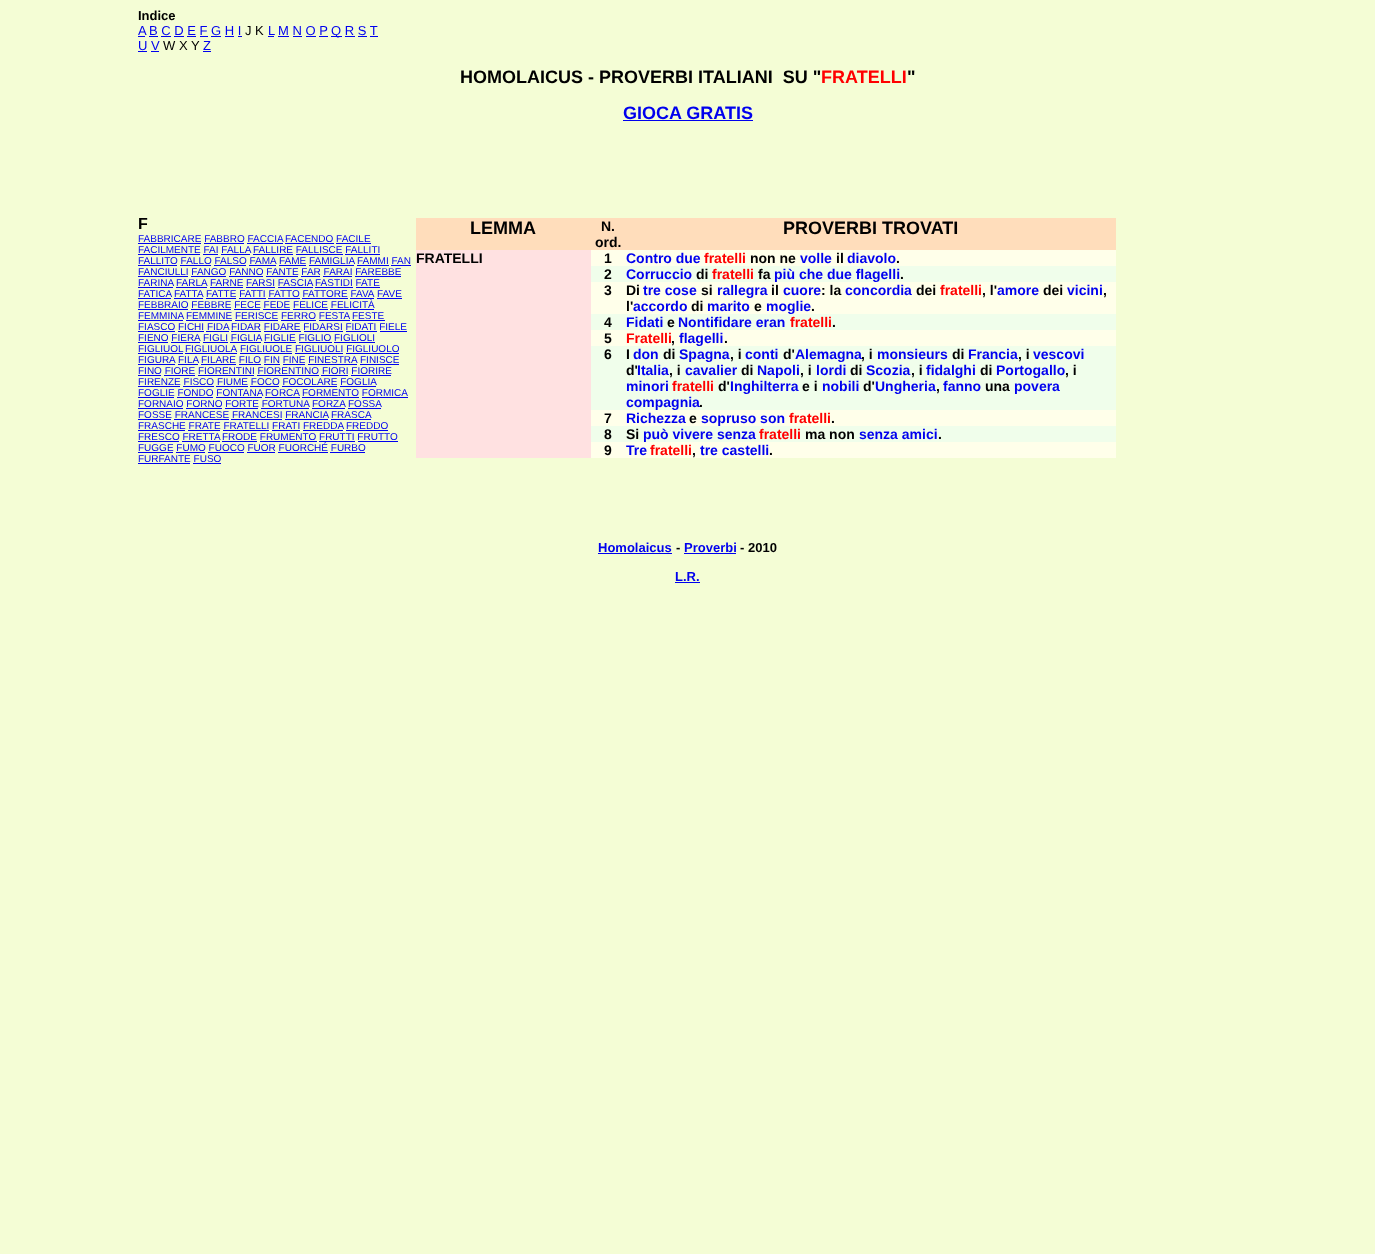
<svg xmlns="http://www.w3.org/2000/svg" width="1375" height="1254">
	<rect width="100%" height="100%" fill="#F4FDD5" />
	<text x="138" y="20" font-family="Liberation Sans" font-size="13" font-weight="700" fill="#000000">Indice</text>
	<text x="138" y="35" font-family="Liberation Sans" font-size="13" fill="#0000EE">A</text>
	<rect x="138" y="36" width="7" height="1" fill="#0000EE" />
	<text x="149" y="35" font-family="Liberation Sans" font-size="13" fill="#0000EE">B C D E F G H I</text>
	<rect x="149" y="36" width="9" height="1" fill="#0000EE" />
	<rect x="161" y="36" width="10" height="1" fill="#0000EE" />
	<rect x="174" y="36" width="10" height="1" fill="#0000EE" />
	<rect x="187" y="36" width="9" height="1" fill="#0000EE" />
	<rect x="200" y="36" width="8" height="1" fill="#0000EE" />
	<rect x="211" y="36" width="10" height="1" fill="#0000EE" />
	<rect x="225" y="36" width="9" height="1" fill="#0000EE" />
	<rect x="238" y="36" width="4" height="1" fill="#0000EE" />
	<text x="245" y="35" font-family="Liberation Sans" font-size="13" fill="#000000">J K</text>
	<text x="268" y="35" font-family="Liberation Sans" font-size="13" fill="#0000EE">L</text>
	<rect x="268" y="36" width="6" height="1" fill="#0000EE" />
	<text x="278" y="35" font-family="Liberation Sans" font-size="13" fill="#0000EE">M N O P</text>
	<rect x="278" y="36" width="11" height="1" fill="#0000EE" />
	<rect x="293" y="36" width="9" height="1" fill="#0000EE" />
	<rect x="306" y="36" width="10" height="1" fill="#0000EE" />
	<rect x="319" y="36" width="9" height="1" fill="#0000EE" />
	<rect x="331" y="36" width="11" height="1" fill="#0000EE" />
	<text x="331" y="35" font-family="Liberation Sans" font-size="13" fill="#0000EE">Q R S T</text>
	<rect x="345" y="36" width="10" height="1" fill="#0000EE" />
	<rect x="358" y="36" width="9" height="1" fill="#0000EE" />
	<rect x="370" y="36" width="8" height="1" fill="#0000EE" />
	<text x="138" y="50" font-family="Liberation Sans" font-size="13" fill="#0000EE">U V</text>
	<rect x="138" y="51" width="9" height="1" fill="#0000EE" />
	<rect x="151" y="51" width="8" height="1" fill="#0000EE" />
	<text x="163" y="50" font-family="Liberation Sans" font-size="13" fill="#000000">W X Y</text>
	<text x="203" y="50" font-family="Liberation Sans" font-size="13" fill="#0000EE">Z</text>
	<rect x="203" y="51" width="8" height="1" fill="#0000EE" />
	<text x="460" y="83" font-family="Liberation Sans" font-size="18" font-weight="700" fill="#000000" xml:space="preserve">HOMOLAICUS - PROVERBI ITALIANI  SU "</text>
	<text x="821" y="83" font-family="Liberation Sans" font-size="18" font-weight="700" fill="#FF0000">FRATELLI</text>
	<text x="907" y="83" font-family="Liberation Sans" font-size="18" font-weight="700" fill="#000000">"</text>
	<text x="623" y="119" font-family="Liberation Sans" font-size="18" font-weight="700" fill="#0000EE">GIOCA GRATIS</text>
	<rect x="623" y="120" width="130" height="1" fill="#0000EE" />
	<text x="138" y="229" font-family="Liberation Sans" font-size="16" font-weight="700" fill="#000000">F</text>
	<text x="138" y="242" font-family="Liberation Sans" font-size="10" fill="#0000EE">FABBRICARE FABBRO FACCIA</text>
	<rect x="138" y="243" width="63" height="1" fill="#0000EE" />
	<rect x="204" y="243" width="40" height="1" fill="#0000EE" />
	<rect x="247" y="243" width="36" height="1" fill="#0000EE" />
	<text x="285" y="242" font-family="Liberation Sans" font-size="10" fill="#0000EE">FACENDO FACILE</text>
	<rect x="285" y="243" width="49" height="1" fill="#0000EE" />
	<rect x="336" y="243" width="35" height="1" fill="#0000EE" />
	<text x="138" y="253" font-family="Liberation Sans" font-size="10" fill="#0000EE">FACILMENTE FAI FALLA</text>
	<rect x="138" y="254" width="62" height="1" fill="#0000EE" />
	<rect x="203" y="254" width="15" height="1" fill="#0000EE" />
	<rect x="221" y="254" width="29" height="1" fill="#0000EE" />
	<text x="253" y="253" font-family="Liberation Sans" font-size="10" fill="#0000EE">FALLIRE FALLISCE FALLITI</text>
	<rect x="253" y="254" width="40" height="1" fill="#0000EE" />
	<rect x="296" y="254" width="47" height="1" fill="#0000EE" />
	<rect x="345" y="254" width="35" height="1" fill="#0000EE" />
	<text x="138" y="264" font-family="Liberation Sans" font-size="10" fill="#0000EE">FALLITO FALLO FALSO FAMA</text>
	<rect x="138" y="265" width="39" height="1" fill="#0000EE" />
	<rect x="180" y="265" width="31" height="1" fill="#0000EE" />
	<rect x="214" y="265" width="32" height="1" fill="#0000EE" />
	<rect x="249" y="265" width="27" height="1" fill="#0000EE" />
	<text x="279" y="264" font-family="Liberation Sans" font-size="10" fill="#0000EE">FAME FAMIGLIA</text>
	<rect x="279" y="265" width="27" height="1" fill="#0000EE" />
	<rect x="309" y="265" width="45" height="1" fill="#0000EE" />
	<text x="357" y="264" font-family="Liberation Sans" font-size="10" fill="#0000EE">FAMMI FAN</text>
	<rect x="357" y="265" width="32" height="1" fill="#0000EE" />
	<rect x="391" y="265" width="20" height="1" fill="#0000EE" />
	<text x="138" y="275" font-family="Liberation Sans" font-size="10" fill="#0000EE">FANCIULLI FANGO FANNO FANTE FAR FARAI FAREBBE</text>
	<rect x="138" y="276" width="50" height="1" fill="#0000EE" />
	<rect x="191" y="276" width="35" height="1" fill="#0000EE" />
	<rect x="229" y="276" width="34" height="1" fill="#0000EE" />
	<rect x="266" y="276" width="32" height="1" fill="#0000EE" />
	<rect x="301" y="276" width="19" height="1" fill="#0000EE" />
	<rect x="323" y="276" width="29" height="1" fill="#0000EE" />
	<rect x="355" y="276" width="46" height="1" fill="#0000EE" />
	<text x="138" y="286" font-family="Liberation Sans" font-size="10" fill="#0000EE">FARINA</text>
	<rect x="138" y="287" width="35" height="1" fill="#0000EE" />
	<text x="176" y="286" font-family="Liberation Sans" font-size="10" fill="#0000EE">FARLA</text>
	<rect x="176" y="287" width="31" height="1" fill="#0000EE" />
	<text x="210" y="286" font-family="Liberation Sans" font-size="10" fill="#0000EE">FARNE FARSI FASCIA</text>
	<rect x="210" y="287" width="33" height="1" fill="#0000EE" />
	<rect x="246" y="287" width="29" height="1" fill="#0000EE" />
	<rect x="278" y="287" width="35" height="1" fill="#0000EE" />
	<text x="315" y="286" font-family="Liberation Sans" font-size="10" fill="#0000EE">FASTIDI FATE</text>
	<rect x="315" y="287" width="38" height="1" fill="#0000EE" />
	<rect x="356" y="287" width="24" height="1" fill="#0000EE" />
	<text x="138" y="297" font-family="Liberation Sans" font-size="10" fill="#0000EE">FATICA</text>
	<rect x="138" y="298" width="33" height="1" fill="#0000EE" />
	<text x="174" y="297" font-family="Liberation Sans" font-size="10" fill="#0000EE">FATTA</text>
	<rect x="174" y="298" width="29" height="1" fill="#0000EE" />
	<text x="206" y="297" font-family="Liberation Sans" font-size="10" fill="#0000EE">FATTE FATTI FATTO FATTORE FAVA</text>
	<rect x="206" y="298" width="30" height="1" fill="#0000EE" />
	<rect x="239" y="298" width="27" height="1" fill="#0000EE" />
	<rect x="268" y="298" width="32" height="1" fill="#0000EE" />
	<rect x="302" y="298" width="46" height="1" fill="#0000EE" />
	<rect x="350" y="298" width="24" height="1" fill="#0000EE" />
	<text x="377" y="297" font-family="Liberation Sans" font-size="10" fill="#0000EE">FAVE</text>
	<rect x="377" y="298" width="25" height="1" fill="#0000EE" />
	<text x="138" y="308" font-family="Liberation Sans" font-size="10" fill="#0000EE">FEBBRAIO FEBBRE FECE FEDE FELICE FELICITÀ</text>
	<rect x="138" y="309" width="50" height="1" fill="#0000EE" />
	<rect x="191" y="309" width="40" height="1" fill="#0000EE" />
	<rect x="234" y="309" width="26" height="1" fill="#0000EE" />
	<rect x="263" y="309" width="27" height="1" fill="#0000EE" />
	<rect x="293" y="309" width="35" height="1" fill="#0000EE" />
	<rect x="330" y="309" width="44" height="1" fill="#0000EE" />
	<text x="138" y="319" font-family="Liberation Sans" font-size="10" fill="#0000EE">FEMMINA</text>
	<rect x="138" y="320" width="45" height="1" fill="#0000EE" />
	<text x="186" y="319" font-family="Liberation Sans" font-size="10" fill="#0000EE">FEMMINE FERISCE FERRO FESTA</text>
	<rect x="186" y="320" width="46" height="1" fill="#0000EE" />
	<rect x="235" y="320" width="43" height="1" fill="#0000EE" />
	<rect x="281" y="320" width="35" height="1" fill="#0000EE" />
	<rect x="319" y="320" width="31" height="1" fill="#0000EE" />
	<text x="352" y="319" font-family="Liberation Sans" font-size="10" fill="#0000EE">FESTE</text>
	<rect x="352" y="320" width="33" height="1" fill="#0000EE" />
	<text x="138" y="330" font-family="Liberation Sans" font-size="10" fill="#0000EE">FIASCO FICHI FIDA</text>
	<rect x="138" y="331" width="37" height="1" fill="#0000EE" />
	<rect x="178" y="331" width="26" height="1" fill="#0000EE" />
	<rect x="206" y="331" width="23" height="1" fill="#0000EE" />
	<text x="231" y="330" font-family="Liberation Sans" font-size="10" fill="#0000EE">FIDAR FIDARE FIDARSI FIDATI FIELE</text>
	<rect x="231" y="331" width="30" height="1" fill="#0000EE" />
	<rect x="264" y="331" width="37" height="1" fill="#0000EE" />
	<rect x="304" y="331" width="39" height="1" fill="#0000EE" />
	<rect x="346" y="331" width="31" height="1" fill="#0000EE" />
	<rect x="380" y="331" width="27" height="1" fill="#0000EE" />
	<text x="138" y="341" font-family="Liberation Sans" font-size="10" fill="#0000EE">FIENO FIERA</text>
	<rect x="138" y="342" width="30" height="1" fill="#0000EE" />
	<rect x="171" y="342" width="29" height="1" fill="#0000EE" />
	<text x="203" y="341" font-family="Liberation Sans" font-size="10" fill="#0000EE">FIGLI FIGLIA</text>
	<rect x="203" y="342" width="25" height="1" fill="#0000EE" />
	<rect x="230" y="342" width="31" height="1" fill="#0000EE" />
	<text x="264" y="341" font-family="Liberation Sans" font-size="10" fill="#0000EE">FIGLIE FIGLIO FIGLIOLI</text>
	<rect x="264" y="342" width="32" height="1" fill="#0000EE" />
	<rect x="299" y="342" width="33" height="1" fill="#0000EE" />
	<rect x="334" y="342" width="41" height="1" fill="#0000EE" />
	<text x="138" y="352" font-family="Liberation Sans" font-size="10" fill="#0000EE">FIGLIUOL</text>
	<rect x="138" y="353" width="45" height="1" fill="#0000EE" />
	<text x="185" y="352" font-family="Liberation Sans" font-size="10" fill="#0000EE">FIGLIUOLA</text>
	<rect x="185" y="353" width="52" height="1" fill="#0000EE" />
	<text x="240" y="352" font-family="Liberation Sans" font-size="10" fill="#0000EE">FIGLIUOLE FIGLIUOLI FIGLIUOLO</text>
	<rect x="240" y="353" width="52" height="1" fill="#0000EE" />
	<rect x="295" y="353" width="48" height="1" fill="#0000EE" />
	<rect x="346" y="353" width="53" height="1" fill="#0000EE" />
	<text x="138" y="363" font-family="Liberation Sans" font-size="10" fill="#0000EE">FIGURA</text>
	<rect x="138" y="364" width="37" height="1" fill="#0000EE" />
	<text x="178" y="363" font-family="Liberation Sans" font-size="10" fill="#0000EE">FILA</text>
	<rect x="178" y="364" width="20" height="1" fill="#0000EE" />
	<text x="201" y="363" font-family="Liberation Sans" font-size="10" fill="#0000EE">FILARE FILO FIN FINE FINESTRA</text>
	<rect x="201" y="364" width="35" height="1" fill="#0000EE" />
	<rect x="239" y="364" width="22" height="1" fill="#0000EE" />
	<rect x="264" y="364" width="16" height="1" fill="#0000EE" />
	<rect x="283" y="364" width="22" height="1" fill="#0000EE" />
	<rect x="308" y="364" width="49" height="1" fill="#0000EE" />
	<text x="360" y="363" font-family="Liberation Sans" font-size="10" fill="#0000EE">FINISCE</text>
	<rect x="360" y="364" width="39" height="1" fill="#0000EE" />
	<text x="138" y="374" font-family="Liberation Sans" font-size="10" fill="#0000EE">FINO FIORE FIORENTINI FIORENTINO FIORI FIORIRE</text>
	<rect x="138" y="375" width="23" height="1" fill="#0000EE" />
	<rect x="164" y="375" width="31" height="1" fill="#0000EE" />
	<rect x="198" y="375" width="56" height="1" fill="#0000EE" />
	<rect x="257" y="375" width="62" height="1" fill="#0000EE" />
	<rect x="321" y="375" width="27" height="1" fill="#0000EE" />
	<rect x="351" y="375" width="40" height="1" fill="#0000EE" />
	<text x="138" y="385" font-family="Liberation Sans" font-size="10" fill="#0000EE">FIRENZE FISCO FIUME FOCO FOCOLARE FOGLIA</text>
	<rect x="138" y="386" width="42" height="1" fill="#0000EE" />
	<rect x="183" y="386" width="31" height="1" fill="#0000EE" />
	<rect x="216" y="386" width="32" height="1" fill="#0000EE" />
	<rect x="250" y="386" width="29" height="1" fill="#0000EE" />
	<rect x="282" y="386" width="55" height="1" fill="#0000EE" />
	<rect x="340" y="386" width="36" height="1" fill="#0000EE" />
	<text x="138" y="396" font-family="Liberation Sans" font-size="10" fill="#0000EE">FOGLIE FONDO FONTANA</text>
	<rect x="138" y="397" width="36" height="1" fill="#0000EE" />
	<rect x="177" y="397" width="36" height="1" fill="#0000EE" />
	<rect x="216" y="397" width="46" height="1" fill="#0000EE" />
	<text x="265" y="396" font-family="Liberation Sans" font-size="10" fill="#0000EE">FORCA</text>
	<rect x="265" y="397" width="35" height="1" fill="#0000EE" />
	<text x="302" y="396" font-family="Liberation Sans" font-size="10" fill="#0000EE">FORMENTO FORMICA</text>
	<rect x="302" y="397" width="57" height="1" fill="#0000EE" />
	<rect x="362" y="397" width="46" height="1" fill="#0000EE" />
	<text x="138" y="407" font-family="Liberation Sans" font-size="10" fill="#0000EE">FORNAIO FORNO FORTE FORTUNA</text>
	<rect x="138" y="408" width="45" height="1" fill="#0000EE" />
	<rect x="186" y="408" width="36" height="1" fill="#0000EE" />
	<rect x="225" y="408" width="33" height="1" fill="#0000EE" />
	<rect x="261" y="408" width="48" height="1" fill="#0000EE" />
	<text x="312" y="407" font-family="Liberation Sans" font-size="10" fill="#0000EE">FORZA</text>
	<rect x="312" y="408" width="33" height="1" fill="#0000EE" />
	<text x="348" y="407" font-family="Liberation Sans" font-size="10" fill="#0000EE">FOSSA</text>
	<rect x="348" y="408" width="33" height="1" fill="#0000EE" />
	<text x="138" y="418" font-family="Liberation Sans" font-size="10" fill="#0000EE">FOSSE FRANCESE FRANCESI FRANCIA</text>
	<rect x="138" y="419" width="33" height="1" fill="#0000EE" />
	<rect x="174" y="419" width="55" height="1" fill="#0000EE" />
	<rect x="231" y="419" width="51" height="1" fill="#0000EE" />
	<rect x="285" y="419" width="43" height="1" fill="#0000EE" />
	<text x="331" y="418" font-family="Liberation Sans" font-size="10" fill="#0000EE">FRASCA</text>
	<rect x="331" y="419" width="40" height="1" fill="#0000EE" />
	<text x="138" y="429" font-family="Liberation Sans" font-size="10" fill="#0000EE">FRASCHE FRATE FRATELLI FRATI FREDDA</text>
	<rect x="138" y="430" width="47" height="1" fill="#0000EE" />
	<rect x="188" y="430" width="32" height="1" fill="#0000EE" />
	<rect x="223" y="430" width="46" height="1" fill="#0000EE" />
	<rect x="272" y="430" width="28" height="1" fill="#0000EE" />
	<rect x="303" y="430" width="40" height="1" fill="#0000EE" />
	<text x="346" y="429" font-family="Liberation Sans" font-size="10" fill="#0000EE">FREDDO</text>
	<rect x="346" y="430" width="42" height="1" fill="#0000EE" />
	<text x="138" y="440" font-family="Liberation Sans" font-size="10" fill="#0000EE">FRESCO FRETTA</text>
	<rect x="138" y="441" width="41" height="1" fill="#0000EE" />
	<rect x="182" y="441" width="38" height="1" fill="#0000EE" />
	<text x="222" y="440" font-family="Liberation Sans" font-size="10" fill="#0000EE">FRODE FRUMENTO FRUTTI FRUTTO</text>
	<rect x="222" y="441" width="35" height="1" fill="#0000EE" />
	<rect x="260" y="441" width="57" height="1" fill="#0000EE" />
	<rect x="319" y="441" width="36" height="1" fill="#0000EE" />
	<rect x="358" y="441" width="40" height="1" fill="#0000EE" />
	<text x="138" y="451" font-family="Liberation Sans" font-size="10" fill="#0000EE">FUGGE FUMO FUOCO FUOR FUORCHÉ FURBO</text>
	<rect x="138" y="452" width="35" height="1" fill="#0000EE" />
	<rect x="176" y="452" width="29" height="1" fill="#0000EE" />
	<rect x="208" y="452" width="36" height="1" fill="#0000EE" />
	<rect x="247" y="452" width="28" height="1" fill="#0000EE" />
	<rect x="278" y="452" width="50" height="1" fill="#0000EE" />
	<rect x="330" y="452" width="35" height="1" fill="#0000EE" />
	<text x="138" y="462" font-family="Liberation Sans" font-size="10" fill="#0000EE">FURFANTE FUSO</text>
	<rect x="138" y="463" width="52" height="1" fill="#0000EE" />
	<rect x="193" y="463" width="28" height="1" fill="#0000EE" />
	<rect x="416" y="218" width="700" height="32" fill="#FFDDBB" />
	<text x="470" y="234" font-family="Liberation Sans" font-size="18" font-weight="700" fill="#000000">LEMMA</text>
	<g font-family="Liberation Sans" font-size="14" font-weight="700" fill="#000000">
		<text x="601" y="231">N.</text>
		<text x="595" y="247">ord.</text>
	</g>
	<text x="783" y="234" font-family="Liberation Sans" font-size="18" font-weight="700" fill="#000000">PROVERBI TROVATI</text>
	<rect x="416" y="250" width="175" height="208" fill="#FFE1E1" />
	<text x="416" y="263" font-family="Liberation Sans" font-size="14" font-weight="700" fill="#000000">FRATELLI</text>
	<rect x="591" y="250" width="525" height="16" fill="#FFFFEA" />
	<text x="604" y="263" font-family="Liberation Sans" font-size="14" font-weight="700" fill="#000000">1</text>
	<text x="626" y="263" font-family="Liberation Sans" font-size="14" font-weight="700" fill="#0000EE">Contro due</text>
	<text x="704" y="263" font-family="Liberation Sans" font-size="14" font-weight="700" fill="#FF0000">fratelli</text>
	<text x="750" y="263" font-family="Liberation Sans" font-size="14" font-weight="700" fill="#000000">non ne</text>
	<text x="800" y="263" font-family="Liberation Sans" font-size="14" font-weight="700" fill="#0000EE">volle</text>
	<text x="836" y="263" font-family="Liberation Sans" font-size="14" font-weight="700" fill="#000000">il</text>
	<text x="847" y="263" font-family="Liberation Sans" font-size="14" font-weight="700" fill="#0000EE">diavolo</text>
	<text x="896" y="263" font-family="Liberation Sans" font-size="14" font-weight="700" fill="#000000">.</text>
	<rect x="591" y="266" width="525" height="16" fill="#F0FEEB" />
	<text x="604" y="279" font-family="Liberation Sans" font-size="14" font-weight="700" fill="#000000">2</text>
	<text x="626" y="279" font-family="Liberation Sans" font-size="14" font-weight="700" fill="#0000EE">Corruccio</text>
	<text x="696" y="279" font-family="Liberation Sans" font-size="14" font-weight="700" fill="#000000">di</text>
	<text x="712" y="279" font-family="Liberation Sans" font-size="14" font-weight="700" fill="#FF0000">fratelli</text>
	<text x="758" y="279" font-family="Liberation Sans" font-size="14" font-weight="700" fill="#000000">fa</text>
	<text x="774" y="279" font-family="Liberation Sans" font-size="14" font-weight="700" fill="#0000EE">più che due flagelli</text>
	<text x="900" y="279" font-family="Liberation Sans" font-size="14" font-weight="700" fill="#000000">.</text>
	<rect x="591" y="282" width="525" height="32" fill="#FFFFEA" />
	<g font-family="Liberation Sans" font-size="14" font-weight="700" fill="#000000">
		<text x="604" y="295">3</text>
		<text x="626" y="295">Di</text>
	</g>
	<text x="643" y="295" font-family="Liberation Sans" font-size="14" font-weight="700" fill="#0000EE">tre cose</text>
	<text x="701" y="295" font-family="Liberation Sans" font-size="14" font-weight="700" fill="#000000">si</text>
	<text x="717" y="295" font-family="Liberation Sans" font-size="14" font-weight="700" fill="#0000EE">rallegra</text>
	<text x="771" y="295" font-family="Liberation Sans" font-size="14" font-weight="700" fill="#000000">il</text>
	<text x="783" y="295" font-family="Liberation Sans" font-size="14" font-weight="700" fill="#0000EE">cuore</text>
	<text x="821" y="295" font-family="Liberation Sans" font-size="14" font-weight="700" fill="#000000">: la</text>
	<text x="845" y="295" font-family="Liberation Sans" font-size="14" font-weight="700" fill="#0000EE">concordia</text>
	<text x="916" y="295" font-family="Liberation Sans" font-size="14" font-weight="700" fill="#000000">dei</text>
	<text x="940" y="295" font-family="Liberation Sans" font-size="14" font-weight="700" fill="#FF0000">fratelli</text>
	<text x="982" y="295" font-family="Liberation Sans" font-size="14" font-weight="700" fill="#000000">, l'</text>
	<text x="997" y="295" font-family="Liberation Sans" font-size="14" font-weight="700" fill="#0000EE">amore</text>
	<text x="1043" y="295" font-family="Liberation Sans" font-size="14" font-weight="700" fill="#000000">dei</text>
	<text x="1067" y="295" font-family="Liberation Sans" font-size="14" font-weight="700" fill="#0000EE">vicini</text>
	<g font-family="Liberation Sans" font-size="14" font-weight="700" fill="#000000">
		<text x="1103" y="295">,</text>
		<text x="626" y="311">l'</text>
	</g>
	<text x="633" y="311" font-family="Liberation Sans" font-size="14" font-weight="700" fill="#0000EE">accordo</text>
	<text x="691" y="311" font-family="Liberation Sans" font-size="14" font-weight="700" fill="#000000">di</text>
	<text x="707" y="311" font-family="Liberation Sans" font-size="14" font-weight="700" fill="#0000EE">marito</text>
	<text x="754" y="311" font-family="Liberation Sans" font-size="14" font-weight="700" fill="#000000">e</text>
	<text x="766" y="311" font-family="Liberation Sans" font-size="14" font-weight="700" fill="#0000EE">moglie</text>
	<text x="811" y="311" font-family="Liberation Sans" font-size="14" font-weight="700" fill="#000000">.</text>
	<rect x="591" y="314" width="525" height="16" fill="#F0FEEB" />
	<text x="604" y="327" font-family="Liberation Sans" font-size="14" font-weight="700" fill="#000000">4</text>
	<text x="626" y="327" font-family="Liberation Sans" font-size="14" font-weight="700" fill="#0000EE">Fidati</text>
	<text x="667" y="327" font-family="Liberation Sans" font-size="14" font-weight="700" fill="#000000">e</text>
	<text x="678" y="327" font-family="Liberation Sans" font-size="14" font-weight="700" fill="#0000EE">Nontifidare eran</text>
	<text x="790" y="327" font-family="Liberation Sans" font-size="14" font-weight="700" fill="#FF0000">fratelli</text>
	<text x="832" y="327" font-family="Liberation Sans" font-size="14" font-weight="700" fill="#000000">.</text>
	<rect x="591" y="330" width="525" height="16" fill="#FFFFEA" />
	<text x="604" y="343" font-family="Liberation Sans" font-size="14" font-weight="700" fill="#000000">5</text>
	<text x="626" y="343" font-family="Liberation Sans" font-size="14" font-weight="700" fill="#FF0000">Fratelli</text>
	<text x="671" y="343" font-family="Liberation Sans" font-size="14" font-weight="700" fill="#000000">,</text>
	<text x="679" y="343" font-family="Liberation Sans" font-size="14" font-weight="700" fill="#0000EE">flagelli</text>
	<text x="724" y="343" font-family="Liberation Sans" font-size="14" font-weight="700" fill="#000000">.</text>
	<rect x="591" y="346" width="525" height="64" fill="#F0FEEB" />
	<g font-family="Liberation Sans" font-size="14" font-weight="700" fill="#000000">
		<text x="604" y="359">6</text>
		<text x="626" y="359">I</text>
	</g>
	<text x="633" y="359" font-family="Liberation Sans" font-size="14" font-weight="700" fill="#0000EE">don</text>
	<text x="663" y="359" font-family="Liberation Sans" font-size="14" font-weight="700" fill="#000000">di</text>
	<text x="679" y="359" font-family="Liberation Sans" font-size="14" font-weight="700" fill="#0000EE">Spagna</text>
	<text x="730" y="359" font-family="Liberation Sans" font-size="14" font-weight="700" fill="#000000">, i</text>
	<text x="745" y="359" font-family="Liberation Sans" font-size="14" font-weight="700" fill="#0000EE">conti</text>
	<text x="783" y="359" font-family="Liberation Sans" font-size="14" font-weight="700" fill="#000000">d'</text>
	<text x="795" y="359" font-family="Liberation Sans" font-size="14" font-weight="700" fill="#0000EE">Alemagna</text>
	<text x="861" y="359" font-family="Liberation Sans" font-size="14" font-weight="700" fill="#000000">, i</text>
	<text x="877" y="359" font-family="Liberation Sans" font-size="14" font-weight="700" fill="#0000EE">monsieurs</text>
	<text x="952" y="359" font-family="Liberation Sans" font-size="14" font-weight="700" fill="#000000">di</text>
	<text x="968" y="359" font-family="Liberation Sans" font-size="14" font-weight="700" fill="#0000EE">Francia</text>
	<text x="1018" y="359" font-family="Liberation Sans" font-size="14" font-weight="700" fill="#000000">, i</text>
	<text x="1033" y="359" font-family="Liberation Sans" font-size="14" font-weight="700" fill="#0000EE">vescovi</text>
	<text x="626" y="375" font-family="Liberation Sans" font-size="14" font-weight="700" fill="#000000">d'</text>
	<text x="637" y="375" font-family="Liberation Sans" font-size="14" font-weight="700" fill="#0000EE">Italia</text>
	<text x="669" y="375" font-family="Liberation Sans" font-size="14" font-weight="700" fill="#000000">, i</text>
	<text x="685" y="375" font-family="Liberation Sans" font-size="14" font-weight="700" fill="#0000EE">cavalier</text>
	<text x="741" y="375" font-family="Liberation Sans" font-size="14" font-weight="700" fill="#000000">di</text>
	<text x="757" y="375" font-family="Liberation Sans" font-size="14" font-weight="700" fill="#0000EE">Napoli</text>
	<text x="800" y="375" font-family="Liberation Sans" font-size="14" font-weight="700" fill="#000000">, i</text>
	<text x="816" y="375" font-family="Liberation Sans" font-size="14" font-weight="700" fill="#0000EE">lordi</text>
	<text x="850" y="375" font-family="Liberation Sans" font-size="14" font-weight="700" fill="#000000">di</text>
	<text x="866" y="375" font-family="Liberation Sans" font-size="14" font-weight="700" fill="#0000EE">Scozia</text>
	<text x="911" y="375" font-family="Liberation Sans" font-size="14" font-weight="700" fill="#000000">, i</text>
	<text x="926" y="375" font-family="Liberation Sans" font-size="14" font-weight="700" fill="#0000EE">fidalghi</text>
	<text x="980" y="375" font-family="Liberation Sans" font-size="14" font-weight="700" fill="#000000">di</text>
	<text x="996" y="375" font-family="Liberation Sans" font-size="14" font-weight="700" fill="#0000EE">Portogallo</text>
	<text x="1065" y="375" font-family="Liberation Sans" font-size="14" font-weight="700" fill="#000000">, i</text>
	<text x="626" y="391" font-family="Liberation Sans" font-size="14" font-weight="700" fill="#0000EE">minori</text>
	<text x="672" y="391" font-family="Liberation Sans" font-size="14" font-weight="700" fill="#FF0000">fratelli</text>
	<text x="718" y="391" font-family="Liberation Sans" font-size="14" font-weight="700" fill="#000000">d'</text>
	<text x="730" y="391" font-family="Liberation Sans" font-size="14" font-weight="700" fill="#0000EE">Inghilterra</text>
	<text x="802" y="391" font-family="Liberation Sans" font-size="14" font-weight="700" fill="#000000">e i</text>
	<text x="822" y="391" font-family="Liberation Sans" font-size="14" font-weight="700" fill="#0000EE">nobili</text>
	<text x="863" y="391" font-family="Liberation Sans" font-size="14" font-weight="700" fill="#000000">d'</text>
	<text x="875" y="391" font-family="Liberation Sans" font-size="14" font-weight="700" fill="#0000EE">Ungheria</text>
	<text x="936" y="391" font-family="Liberation Sans" font-size="14" font-weight="700" fill="#000000">,</text>
	<text x="943" y="391" font-family="Liberation Sans" font-size="14" font-weight="700" fill="#0000EE">fanno</text>
	<text x="985" y="391" font-family="Liberation Sans" font-size="14" font-weight="700" fill="#000000">una</text>
	<g font-family="Liberation Sans" font-size="14" font-weight="700" fill="#0000EE">
		<text x="1014" y="391">povera</text>
		<text x="626" y="407">compagnia</text>
	</g>
	<text x="699" y="407" font-family="Liberation Sans" font-size="14" font-weight="700" fill="#000000">.</text>
	<rect x="591" y="410" width="525" height="16" fill="#FFFFEA" />
	<text x="604" y="423" font-family="Liberation Sans" font-size="14" font-weight="700" fill="#000000">7</text>
	<text x="626" y="423" font-family="Liberation Sans" font-size="14" font-weight="700" fill="#0000EE">Richezza</text>
	<text x="689" y="423" font-family="Liberation Sans" font-size="14" font-weight="700" fill="#000000">e</text>
	<text x="701" y="423" font-family="Liberation Sans" font-size="14" font-weight="700" fill="#0000EE">sopruso son</text>
	<text x="789" y="423" font-family="Liberation Sans" font-size="14" font-weight="700" fill="#FF0000">fratelli</text>
	<text x="831" y="423" font-family="Liberation Sans" font-size="14" font-weight="700" fill="#000000">.</text>
	<rect x="591" y="426" width="525" height="16" fill="#F0FEEB" />
	<g font-family="Liberation Sans" font-size="14" font-weight="700" fill="#000000">
		<text x="604" y="439">8</text>
		<text x="626" y="439">Si</text>
	</g>
	<text x="643" y="439" font-family="Liberation Sans" font-size="14" font-weight="700" fill="#0000EE">può vivere senza</text>
	<text x="759" y="439" font-family="Liberation Sans" font-size="14" font-weight="700" fill="#FF0000">fratelli</text>
	<text x="805" y="439" font-family="Liberation Sans" font-size="14" font-weight="700" fill="#000000">ma non</text>
	<text x="859" y="439" font-family="Liberation Sans" font-size="14" font-weight="700" fill="#0000EE">senza amici</text>
	<text x="938" y="439" font-family="Liberation Sans" font-size="14" font-weight="700" fill="#000000">.</text>
	<rect x="591" y="442" width="525" height="16" fill="#FFFFEA" />
	<text x="604" y="455" font-family="Liberation Sans" font-size="14" font-weight="700" fill="#000000">9</text>
	<text x="626" y="455" font-family="Liberation Sans" font-size="14" font-weight="700" fill="#0000EE">Tre</text>
	<text x="650" y="455" font-family="Liberation Sans" font-size="14" font-weight="700" fill="#FF0000">fratelli</text>
	<text x="692" y="455" font-family="Liberation Sans" font-size="14" font-weight="700" fill="#000000">,</text>
	<text x="700" y="455" font-family="Liberation Sans" font-size="14" font-weight="700" fill="#0000EE">tre castelli</text>
	<text x="769" y="455" font-family="Liberation Sans" font-size="14" font-weight="700" fill="#000000">.</text>
	<text x="598" y="552" font-family="Liberation Sans" font-size="13" font-weight="700" fill="#0000EE">Homolaicus</text>
	<rect x="598" y="553" width="74" height="1" fill="#0000EE" />
	<text x="676" y="552" font-family="Liberation Sans" font-size="13" font-weight="700" fill="#000000">-</text>
	<text x="684" y="552" font-family="Liberation Sans" font-size="13" font-weight="700" fill="#0000EE">Proverbi</text>
	<rect x="684" y="553" width="52" height="1" fill="#0000EE" />
	<text x="740" y="552" font-family="Liberation Sans" font-size="13" font-weight="700" fill="#000000">- 2010</text>
	<text x="675" y="581" font-family="Liberation Sans" font-size="13" font-weight="700" fill="#0000EE">L.R.</text>
	<rect x="675" y="582" width="25" height="1" fill="#0000EE" />
</svg>
